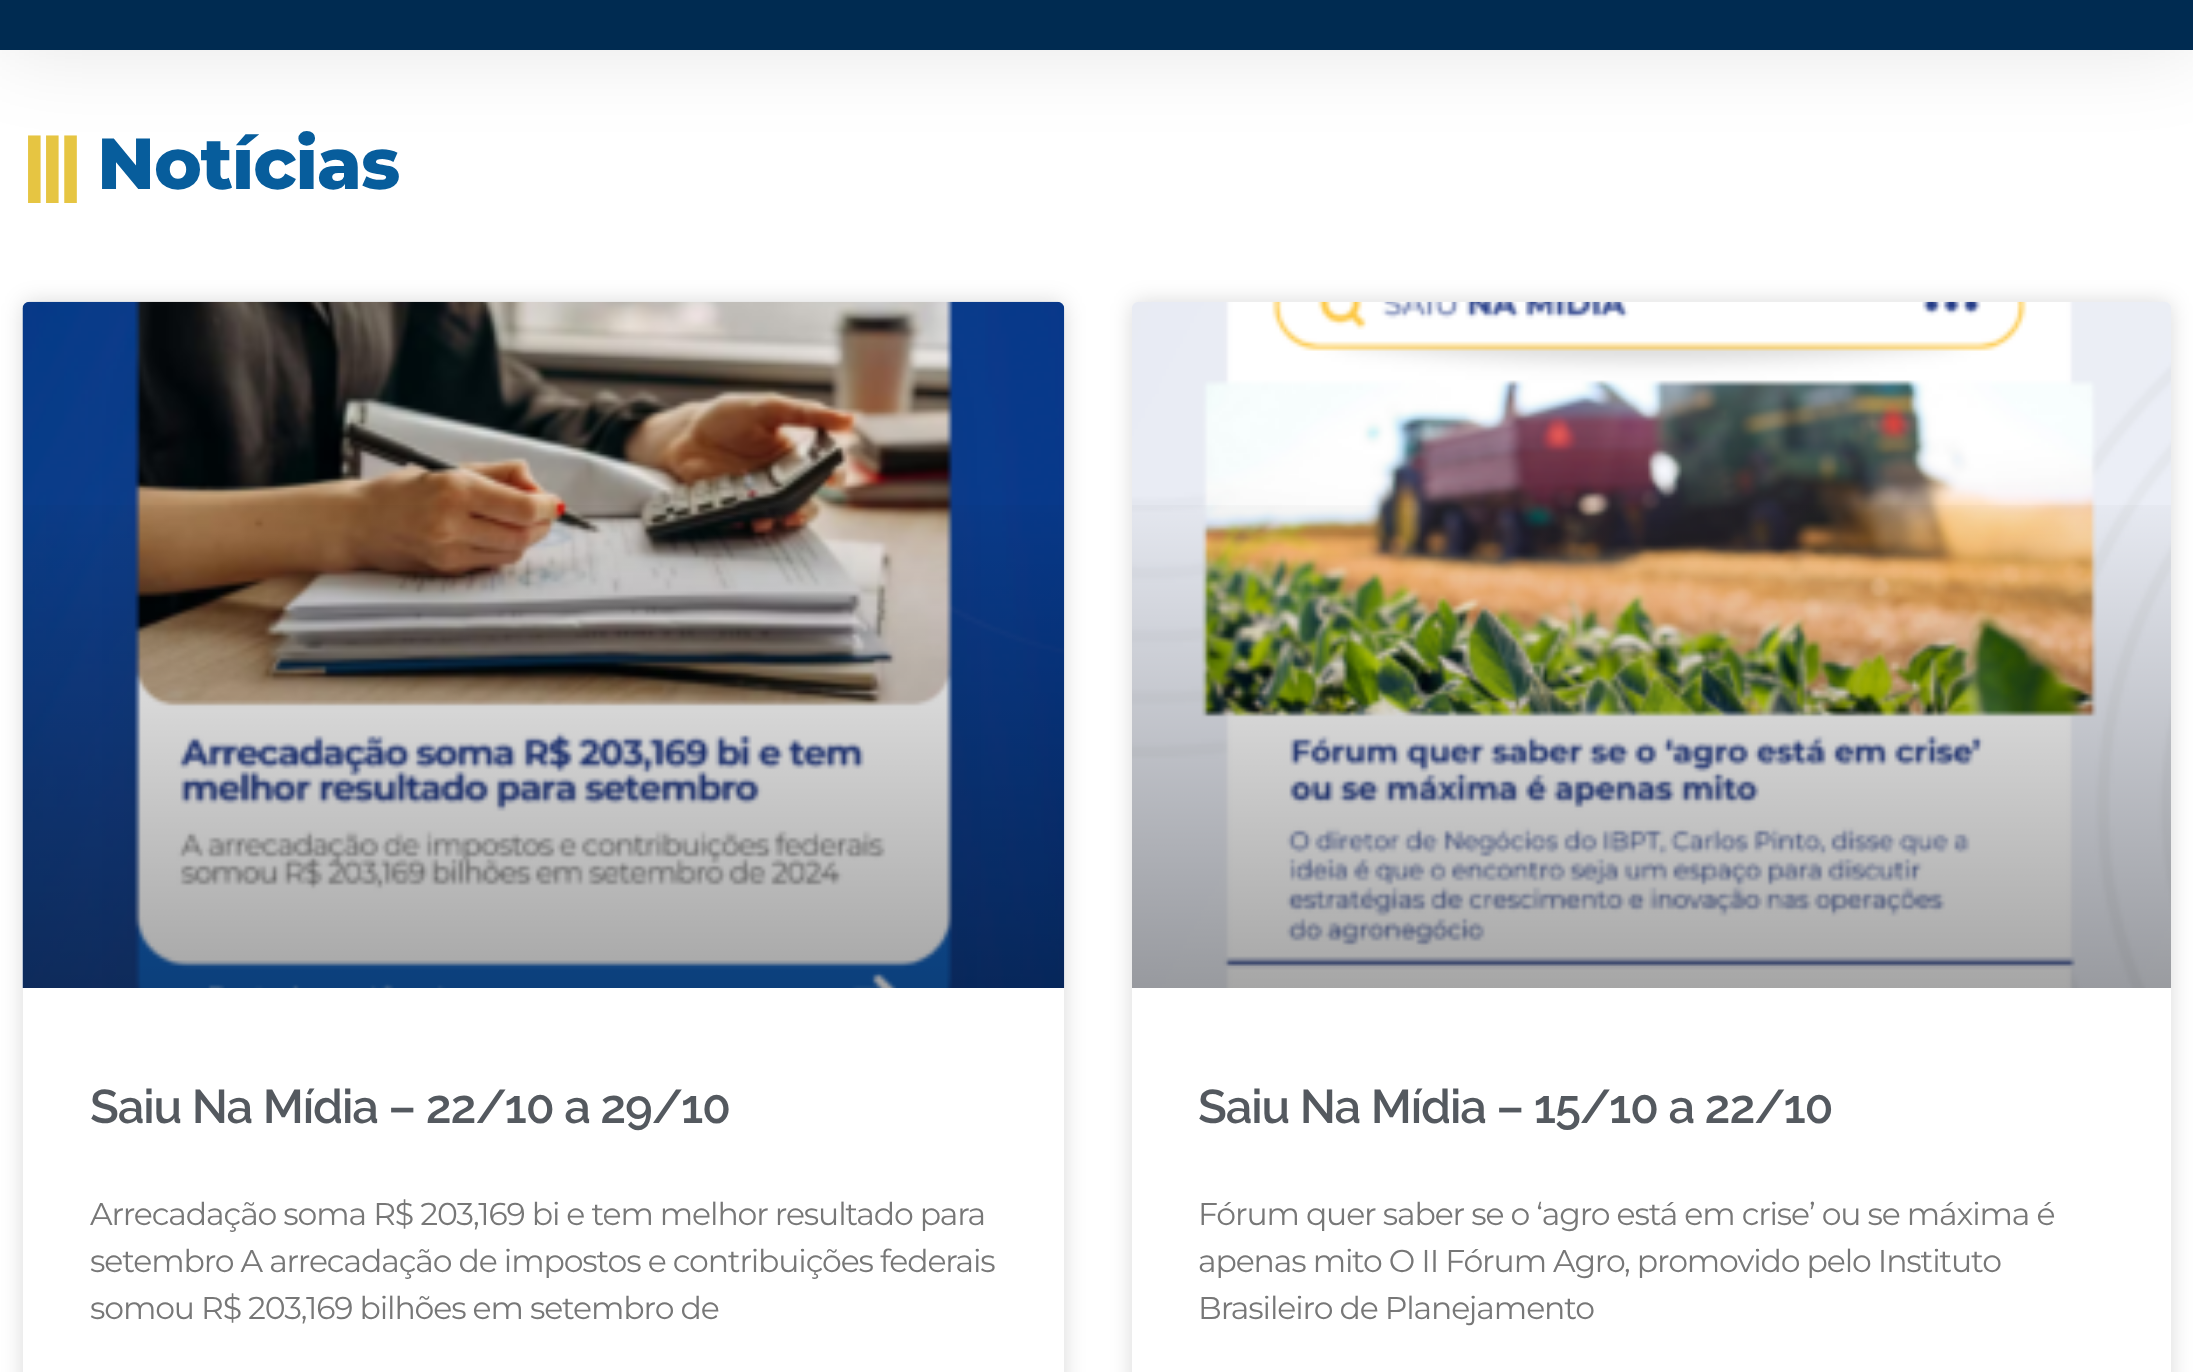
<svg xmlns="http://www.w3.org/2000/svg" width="2193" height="1372">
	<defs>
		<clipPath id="clip1"><path d="M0 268H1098V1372H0ZM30 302H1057C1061 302 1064 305 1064 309V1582C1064 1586 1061 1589 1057 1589H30C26 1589 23 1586 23 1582V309C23 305 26 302 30 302Z" clip-rule="evenodd" /></clipPath>
		<linearGradient id="g1" gradientUnits="userSpaceOnUse" x1="543" y1="988" x2="543" y2="302"><stop offset="0" stop-color="#000000" stop-opacity="0.35" /><stop offset="0.75" stop-color="#000000" stop-opacity="0" /></linearGradient>
		<clipPath id="clip2"><path d="M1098 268H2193V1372H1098ZM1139 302H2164C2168 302 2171 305 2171 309V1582C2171 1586 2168 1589 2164 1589H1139C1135 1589 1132 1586 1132 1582V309C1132 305 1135 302 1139 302Z" clip-rule="evenodd" /></clipPath>
		<linearGradient id="g2" gradientUnits="userSpaceOnUse" x1="1652" y1="988" x2="1652" y2="302"><stop offset="0" stop-color="#000000" stop-opacity="0.35" /><stop offset="0.75" stop-color="#000000" stop-opacity="0" /></linearGradient>
	</defs>
	<rect width="100%" height="100%" fill="#FFFFFF" />
	<rect x="0" y="-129" width="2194" height="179" fill="#000000" fill-opacity="0.1" filter="blur(43px)" />
	<rect x="0" y="0" width="2193" height="50" fill="#002B51" />
	<text x="23" y="189" font-family="Montserrat" font-size="72" font-weight="800" letter-spacing="-4.5" fill="#E6C542">|||</text>
	<text x="97" y="189" font-family="Montserrat" font-size="72" font-weight="800" letter-spacing="-1.12" fill="#075D9C">Notícias</text>
	<g clip-path="url(#clip1)">
		<rect x="23" y="302" width="1041" height="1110" rx="7" fill="#000000" fill-opacity="0.15" filter="blur(11px)" />
	</g>
	<image x="22" y="301" width="1043" height="687" href="assets/img1.png" />
	<rect x="23" y="505" width="1041" height="483" fill="url(#g1)" />
	<text x="90" y="1123" font-family="Raleway" font-size="47.25" font-weight="600" letter-spacing="-1.12" fill="#54595F">Saiu Na Mídia – 22/10 a 29/10</text>
	<g font-family="Montserrat" font-size="31.5" letter-spacing="-1.12" fill="#777777">
		<text x="90" y="1225">Arrecadação soma R$ 203,169 bi e tem melhor resultado para</text>
		<text x="90" y="1272">setembro A arrecadação de impostos e contribuições federais</text>
		<text x="90" y="1319">somou R$ 203,169 bilhões em setembro de</text>
	</g>
	<g clip-path="url(#clip2)">
		<rect x="1132" y="302" width="1039" height="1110" rx="7" fill="#000000" fill-opacity="0.15" filter="blur(11px)" />
	</g>
	<image x="1132" y="301" width="1039" height="687" href="assets/img2.png" />
	<rect x="1132" y="505" width="1039" height="483" fill="url(#g2)" />
	<text x="1198" y="1123" font-family="Raleway" font-size="47.25" font-weight="600" letter-spacing="-1.12" fill="#54595F">Saiu Na Mídia – 15/10 a 22/10</text>
	<g font-family="Montserrat" font-size="31.5" letter-spacing="-1.12" fill="#777777">
		<text x="1198" y="1225">Fórum quer saber se o ‘agro está em crise’ ou se máxima é</text>
		<text x="1198" y="1272">apenas mito O II Fórum Agro, promovido pelo Instituto</text>
		<text x="1198" y="1319">Brasileiro de Planejamento</text>
	</g>
</svg>
